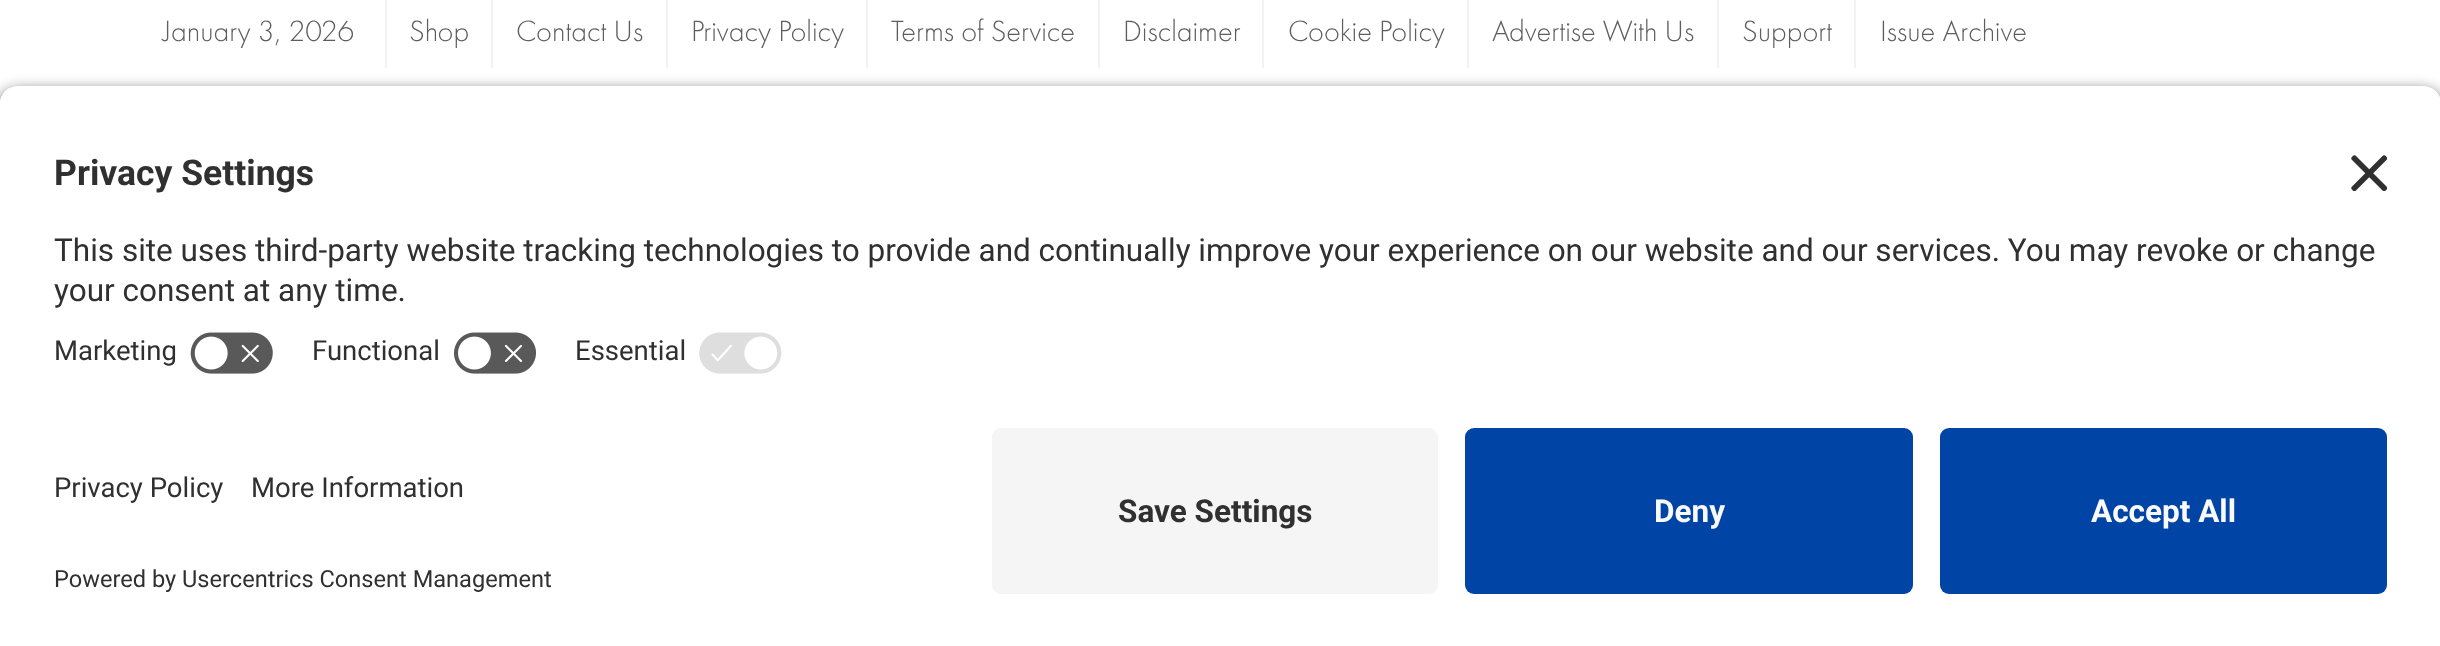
<svg xmlns="http://www.w3.org/2000/svg" width="2440" height="646">
	<defs>
		<clipPath id="clip1"><path d="M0 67H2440V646H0ZM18 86H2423C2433 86 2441 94 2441 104V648H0V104C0 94 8 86 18 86Z" clip-rule="evenodd" /></clipPath>
		<clipPath id="clip2"><path d="M18 86H2423C2433 86 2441 94 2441 104V410H0V104C0 94 8 86 18 86Z" /></clipPath>
	</defs>
	<rect width="100%" height="100%" fill="#FFFFFF" />
	<text x="163" y="41" font-family="futura" font-size="30.5" font-weight="300" fill="#5E5E5E">January 3, 2026</text>
	<rect x="385" y="0" width="2" height="68" fill="#F2F2F2" />
	<text x="409" y="41" font-family="futura" font-size="30.5" font-weight="300" fill="#5E5E5E">Shop</text>
	<rect x="491" y="0" width="2" height="68" fill="#F2F2F2" />
	<text x="516" y="41" font-family="futura" font-size="30.5" font-weight="300" fill="#5E5E5E">Contact Us</text>
	<rect x="666" y="0" width="2" height="68" fill="#F2F2F2" />
	<text x="691" y="41" font-family="futura" font-size="30.5" font-weight="300" fill="#5E5E5E">Privacy Policy</text>
	<rect x="866" y="0" width="2" height="68" fill="#F2F2F2" />
	<text x="891" y="41" font-family="futura" font-size="30.5" font-weight="300" fill="#5E5E5E">Terms of Service</text>
	<rect x="1098" y="0" width="2" height="68" fill="#F2F2F2" />
	<text x="1123" y="41" font-family="futura" font-size="30.5" font-weight="300" fill="#5E5E5E">Disclaimer</text>
	<rect x="1262" y="0" width="2" height="68" fill="#F2F2F2" />
	<text x="1288" y="41" font-family="futura" font-size="30.5" font-weight="300" fill="#5E5E5E">Cookie Policy</text>
	<rect x="1467" y="0" width="2" height="68" fill="#F2F2F2" />
	<text x="1492" y="41" font-family="futura" font-size="30.5" font-weight="300" fill="#5E5E5E">Advertise With Us</text>
	<rect x="1717" y="0" width="2" height="68" fill="#F2F2F2" />
	<text x="1742" y="41" font-family="futura" font-size="30.5" font-weight="300" fill="#5E5E5E">Support</text>
	<rect x="1854" y="0" width="2" height="68" fill="#F2F2F2" />
	<text x="1880" y="41" font-family="futura" font-size="30.5" font-weight="300" fill="#5E5E5E">Issue Archive</text>
	<g clip-path="url(#clip1)">
		<rect x="0" y="92" width="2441" height="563" rx="18" fill="#000000" fill-opacity="0.8" filter="blur(8px)" />
	</g>
	<g clip-path="url(#clip2)">
		<rect x="0" y="88" width="2440" height="322" fill="#FFFFFF" />
		<rect x="0" y="88" width="2440" height="232" fill="#FFFFFF" />
	</g>
	<text x="54" y="185" font-family="Roboto" font-size="35.5" font-weight="700" fill="#303030">Privacy Settings</text>
	<image x="2351" y="155" width="36" height="36" href="assets/img1.png" />
	<g font-family="Roboto" font-size="31.5" fill="#303030">
		<text x="54" y="261">This site uses third-party website tracking technologies to provide and continually improve your experience on our website and our services. You may revoke or change</text>
		<text x="54" y="301">your consent at any time.</text>
	</g>
	<text x="54" y="360" font-family="Roboto" font-size="27.5" fill="#303030">Marketing</text>
	<image x="190" y="332" width="83" height="42" href="assets/img2.png" />
	<text x="312" y="360" font-family="Roboto" font-size="27.5" fill="#303030">Functional</text>
	<image x="453" y="332" width="84" height="42" href="assets/img3.png" />
	<text x="575" y="360" font-family="Roboto" font-size="27.5" fill="#303030">Essential</text>
	<image x="699" y="332" width="83" height="42" href="assets/img4.png" />
	<g font-family="Roboto" font-size="27.5" fill="#303030">
		<text x="54" y="497">Privacy Policy</text>
		<text x="251" y="497">More Information</text>
	</g>
	<text x="54" y="587" font-family="Roboto" font-size="23.6" fill="#303030">Powered by Usercentrics Consent Management</text>
	<rect x="992" y="428" width="446" height="166" rx="9" fill="#F5F5F5" />
	<text x="1118" y="522" font-family="Roboto" font-size="31.5" font-weight="700" fill="#303030">Save Settings</text>
	<rect x="1465" y="428" width="448" height="166" rx="9" fill="#0045A5" />
	<text x="1654" y="522" font-family="Roboto" font-size="31.5" font-weight="700" fill="#FAFAFA">Deny</text>
	<rect x="1940" y="428" width="447" height="166" rx="9" fill="#0045A5" />
	<text x="2091" y="522" font-family="Roboto" font-size="31.5" font-weight="700" fill="#FAFAFA">Accept All</text>
</svg>
